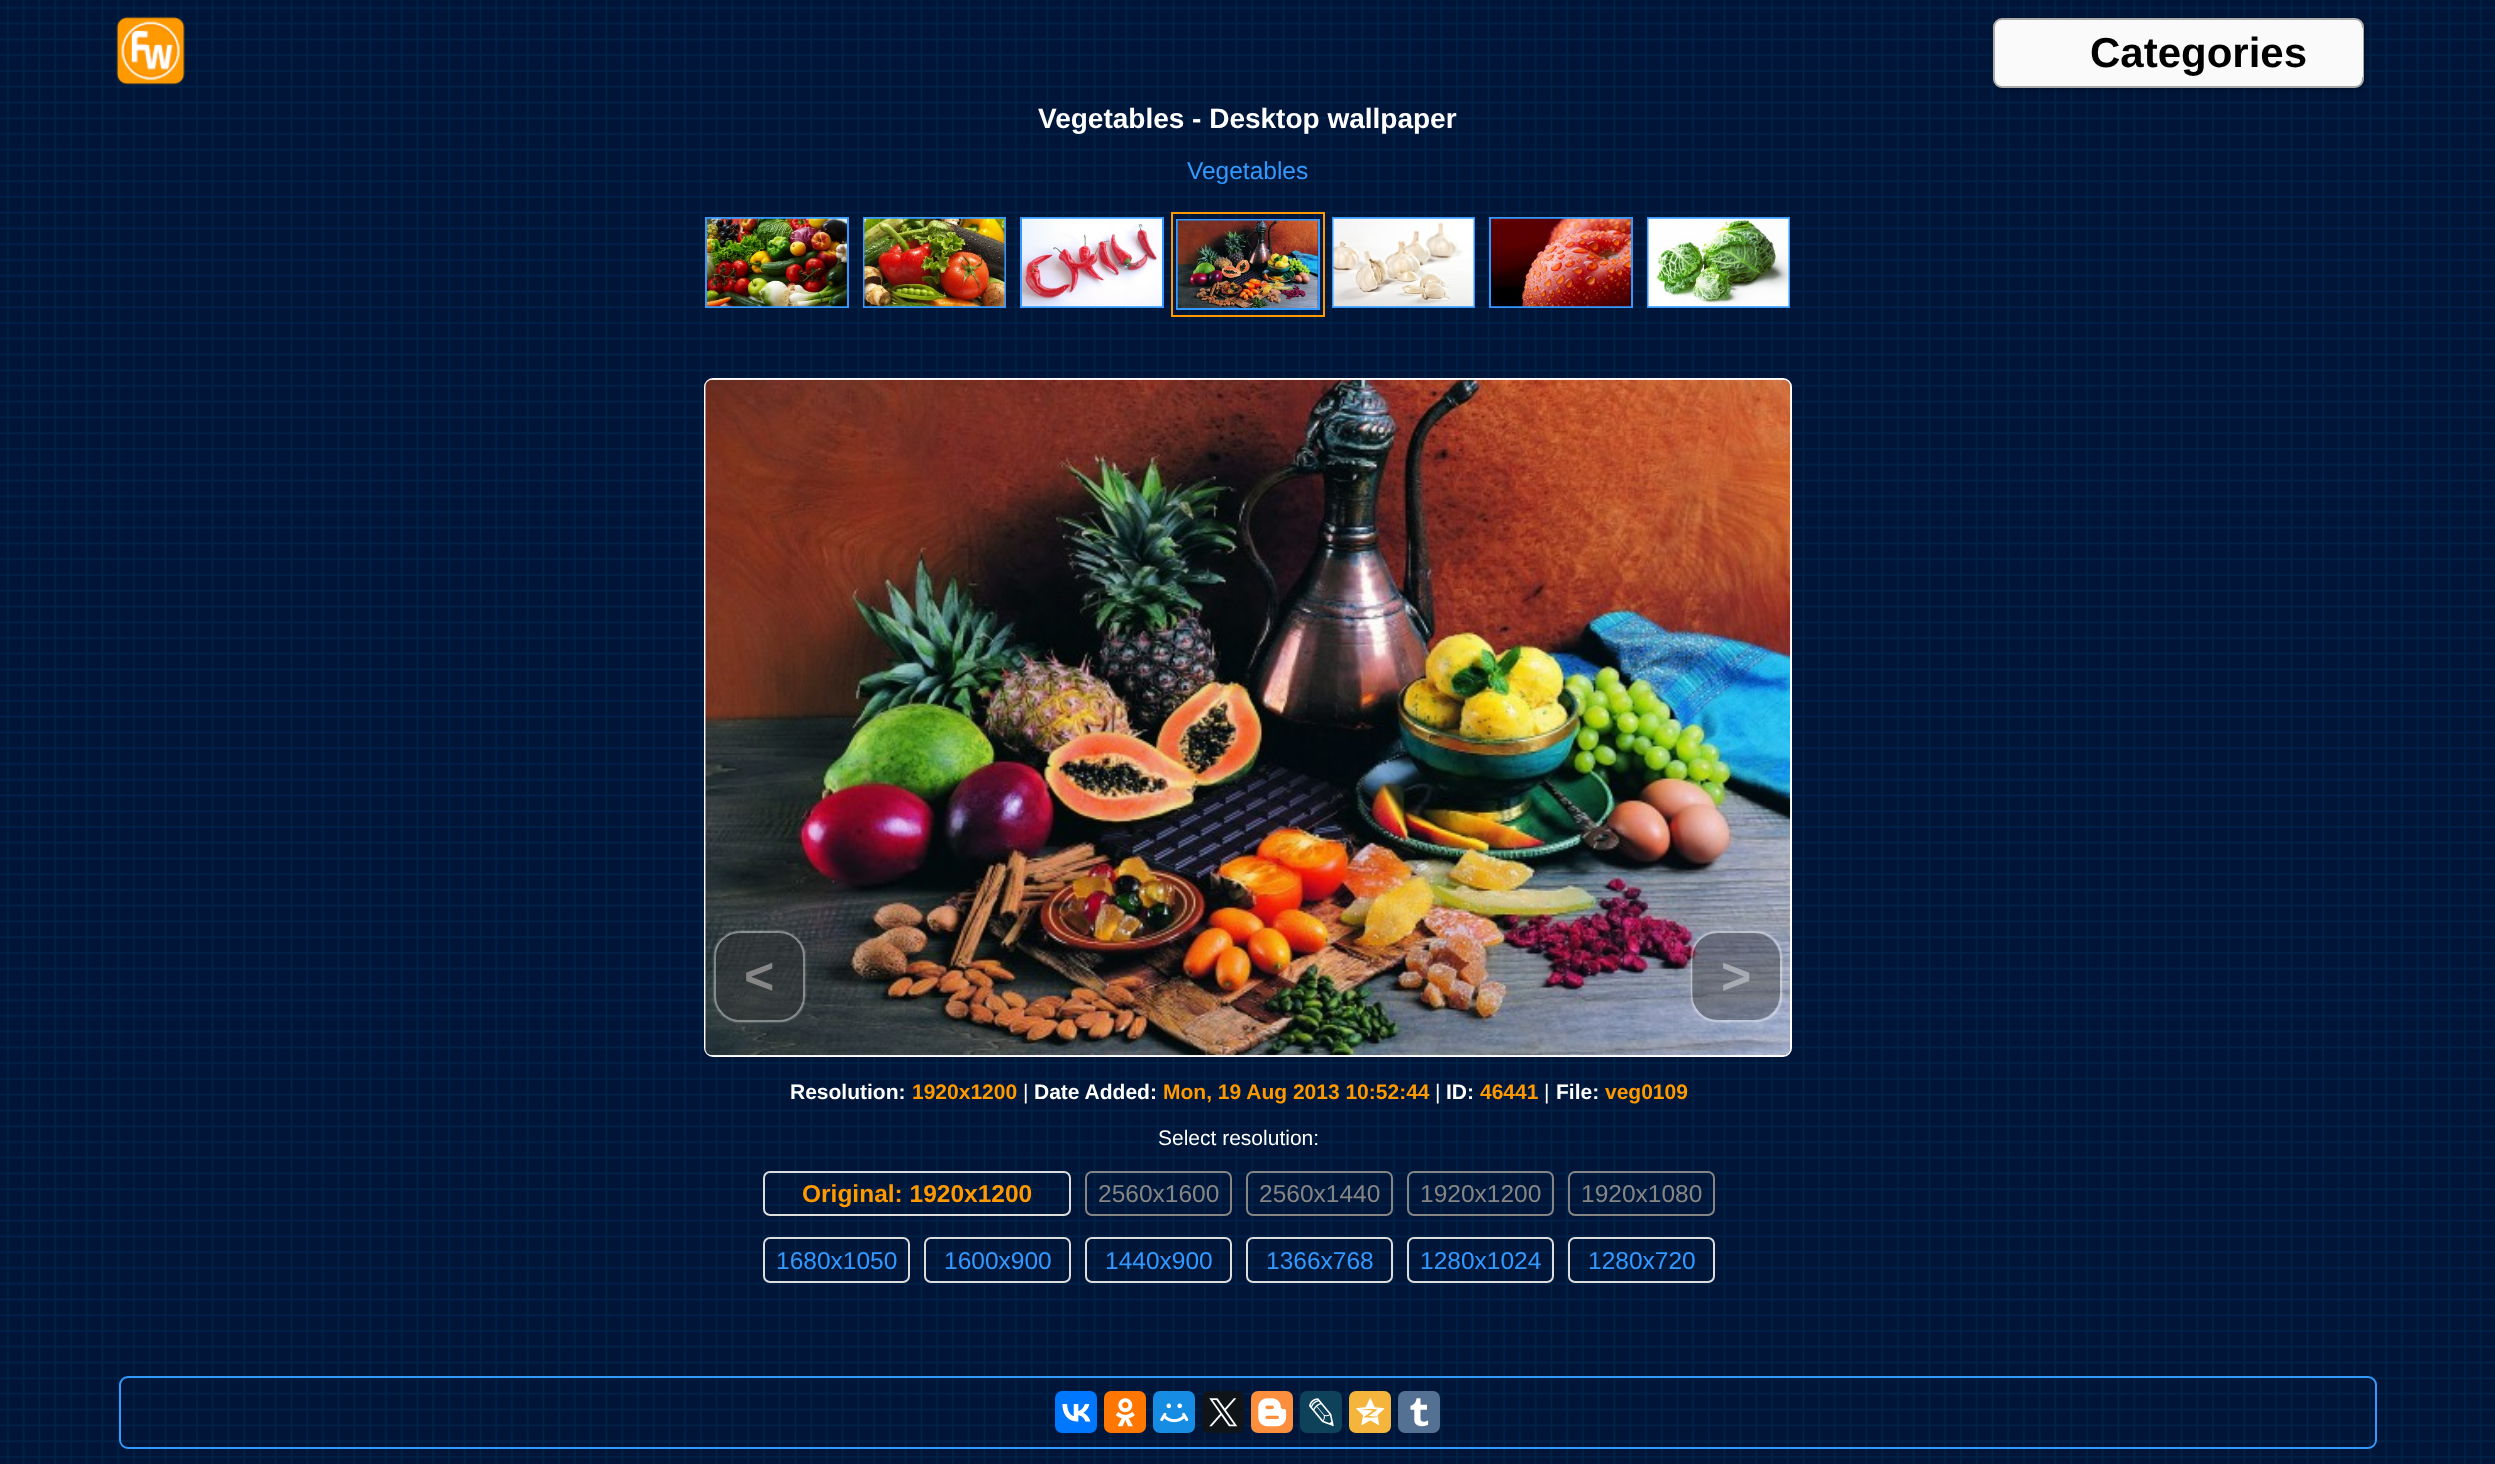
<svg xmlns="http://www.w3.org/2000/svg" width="2495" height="1464">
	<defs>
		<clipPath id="clip1"><path d="M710 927H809V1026H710ZM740 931H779C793.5 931 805 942.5 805 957V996C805 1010.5 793.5 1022 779 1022H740C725.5 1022 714 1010.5 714 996V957C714 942.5 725.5 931 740 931Z" clip-rule="evenodd" /></clipPath>
		<clipPath id="clip2"><rect x="716" y="933" width="87" height="87" rx="25" /></clipPath>
		<clipPath id="clip3"><path d="M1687 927H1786V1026H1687ZM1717 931H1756C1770.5 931 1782 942.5 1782 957V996C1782 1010.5 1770.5 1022 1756 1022H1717C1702.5 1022 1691 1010.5 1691 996V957C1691 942.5 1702.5 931 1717 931Z" clip-rule="evenodd" /></clipPath>
		<clipPath id="clip4"><rect x="1692" y="933" width="88" height="87" rx="25" /></clipPath>
	</defs>
	<rect width="100%" height="100%" fill="#FFFFFF" />
	<image x="0" y="0" width="2495" height="1464" href="assets/img1.png" />
	<image x="116" y="16" width="69" height="69" href="assets/img2.png" />
	<rect x="1993" y="19" width="371" height="70" rx="9" fill="#000000" fill-opacity="0.3" filter="blur(2px)" />
	<rect x="1994" y="19" width="369" height="68" rx="8" fill="#FAFAFA" stroke="#AAAAAA" stroke-width="2" />
	<rect x="2362" y="28" width="1" height="49" fill="#FAFAFA" />
	<text x="2090" y="67" font-family="Liberation Sans" font-size="42" font-weight="700" fill="#000000">Categories</text>
	<text x="1038" y="128" font-family="Liberation Sans" font-size="28" font-weight="700" fill="#FFFFFF">Vegetables - Desktop wallpaper</text>
	<text x="1187" y="179" font-family="Liberation Sans" font-size="24.5" fill="#3399FF">Vegetables</text>
	<rect x="706" y="218" width="142" height="89" fill="none" stroke="#3399FF" stroke-width="2" />
	<image x="707" y="218" width="140" height="89" href="assets/img3.png" />
	<rect x="864" y="218" width="141" height="89" fill="none" stroke="#3399FF" stroke-width="2" />
	<image x="864" y="218" width="141" height="89" href="assets/img4.png" />
	<rect x="1021" y="218" width="142" height="89" fill="none" stroke="#3399FF" stroke-width="2" />
	<image x="1022" y="218" width="140" height="89" href="assets/img5.png" />
	<rect x="1172" y="213" width="152" height="103" fill="none" stroke="#FF9900" stroke-width="2" />
	<rect x="1177" y="220" width="142" height="89" fill="none" stroke="#3399FF" stroke-width="2" />
	<image x="1177" y="220" width="141" height="88" href="assets/img6.png" />
	<rect x="1333" y="218" width="141" height="89" fill="none" stroke="#3399FF" stroke-width="2" />
	<image x="1333" y="218" width="141" height="89" href="assets/img7.png" />
	<rect x="1490" y="218" width="142" height="89" fill="none" stroke="#3399FF" stroke-width="2" />
	<image x="1491" y="218" width="140" height="89" href="assets/img8.png" />
	<rect x="1648" y="218" width="141" height="89" fill="none" stroke="#3399FF" stroke-width="2" />
	<image x="1648" y="218" width="141" height="89" href="assets/img9.png" />
	<rect x="705" y="379" width="1086" height="677" rx="8" fill="none" stroke="#FFFFFF" stroke-width="2" />
	<image x="705" y="379" width="1086" height="677" href="assets/img10.png" />
	<g clip-path="url(#clip1)">
		<rect x="714" y="931" width="91" height="91" rx="26" fill="#FFFFFF" fill-opacity="0.4" filter="blur(1px)" />
	</g>
	<rect x="715" y="932" width="89" height="89" rx="25" fill="none" stroke="#FFFFFF" stroke-opacity="0.4" stroke-width="2" />
	<g clip-path="url(#clip2)">
		<rect x="716" y="933" width="87" height="87" rx="26" fill="#333333" fill-opacity="0.4" />
	</g>
	<text x="744" y="994" font-family="Liberation Sans" font-size="52" font-weight="700" fill="#858585">&lt;</text>
	<g clip-path="url(#clip3)">
		<rect x="1691" y="931" width="91" height="91" rx="26" fill="#FFFFFF" fill-opacity="0.4" filter="blur(1px)" />
	</g>
	<rect x="1692" y="932" width="89" height="89" rx="25" fill="none" stroke="#FFFFFF" stroke-opacity="0.4" stroke-width="2" />
	<g clip-path="url(#clip4)">
		<rect x="1692" y="933" width="88" height="87" rx="26" fill="#333333" fill-opacity="0.4" />
	</g>
	<text x="1721" y="994" font-family="Liberation Sans" font-size="52" font-weight="700" fill="#A8ABB2">&gt;</text>
	<text x="790" y="1099" font-family="Liberation Sans" font-size="21" font-weight="700" fill="#FFFFFF">Resolution:</text>
	<text x="912" y="1099" font-family="Liberation Sans" font-size="21" font-weight="700" fill="#FF9900">1920x1200</text>
	<text x="1023" y="1099" font-family="Liberation Sans" font-size="21" fill="#FFFFFF">|</text>
	<text x="1034" y="1099" font-family="Liberation Sans" font-size="21" font-weight="700" fill="#FFFFFF">Date Added:</text>
	<text x="1163" y="1099" font-family="Liberation Sans" font-size="21" font-weight="700" fill="#FF9900">Mon, 19 Aug 2013 10:52:44</text>
	<text x="1435" y="1099" font-family="Liberation Sans" font-size="21" fill="#FFFFFF">|</text>
	<text x="1446" y="1099" font-family="Liberation Sans" font-size="21" font-weight="700" fill="#FFFFFF">ID:</text>
	<text x="1480" y="1099" font-family="Liberation Sans" font-size="21" font-weight="700" fill="#FF9900">46441</text>
	<text x="1544" y="1099" font-family="Liberation Sans" font-size="21" fill="#FFFFFF">|</text>
	<text x="1556" y="1099" font-family="Liberation Sans" font-size="21" font-weight="700" fill="#FFFFFF">File:</text>
	<text x="1605" y="1099" font-family="Liberation Sans" font-size="21" font-weight="700" fill="#FF9900">veg0109</text>
	<text x="1158" y="1145" font-family="Liberation Sans" font-size="21" fill="#FFFFFF">Select resolution:</text>
	<rect x="764" y="1172" width="306" height="43" rx="6" fill="none" stroke="#DDDDDD" stroke-width="2" />
	<text x="802" y="1202" font-family="Liberation Sans" font-size="24.5" font-weight="700" fill="#FF9900">Original: 1920x1200</text>
	<rect x="1086" y="1172" width="145" height="43" rx="6" fill="none" stroke="#858585" stroke-width="2" />
	<text x="1098" y="1202" font-family="Liberation Sans" font-size="24.5" fill="#858585">2560x1600</text>
	<rect x="1247" y="1172" width="145" height="43" rx="6" fill="none" stroke="#858585" stroke-width="2" />
	<text x="1259" y="1202" font-family="Liberation Sans" font-size="24.5" fill="#858585">2560x1440</text>
	<rect x="1408" y="1172" width="145" height="43" rx="6" fill="none" stroke="#858585" stroke-width="2" />
	<text x="1420" y="1202" font-family="Liberation Sans" font-size="24.5" fill="#858585">1920x1200</text>
	<rect x="1569" y="1172" width="145" height="43" rx="6" fill="none" stroke="#858585" stroke-width="2" />
	<text x="1581" y="1202" font-family="Liberation Sans" font-size="24.5" fill="#858585">1920x1080</text>
	<rect x="764" y="1238" width="145" height="44" rx="6" fill="none" stroke="#DDDDDD" stroke-width="2" />
	<text x="776" y="1269" font-family="Liberation Sans" font-size="24.5" fill="#3399FF">1680x1050</text>
	<rect x="925" y="1238" width="145" height="44" rx="6" fill="none" stroke="#DDDDDD" stroke-width="2" />
	<text x="944" y="1269" font-family="Liberation Sans" font-size="24.5" fill="#3399FF">1600x900</text>
	<rect x="1086" y="1238" width="145" height="44" rx="6" fill="none" stroke="#DDDDDD" stroke-width="2" />
	<text x="1105" y="1269" font-family="Liberation Sans" font-size="24.5" fill="#3399FF">1440x900</text>
	<rect x="1247" y="1238" width="145" height="44" rx="6" fill="none" stroke="#DDDDDD" stroke-width="2" />
	<text x="1266" y="1269" font-family="Liberation Sans" font-size="24.5" fill="#3399FF">1366x768</text>
	<rect x="1408" y="1238" width="145" height="44" rx="6" fill="none" stroke="#DDDDDD" stroke-width="2" />
	<text x="1420" y="1269" font-family="Liberation Sans" font-size="24.5" fill="#3399FF">1280x1024</text>
	<rect x="1569" y="1238" width="145" height="44" rx="6" fill="none" stroke="#DDDDDD" stroke-width="2" />
	<text x="1588" y="1269" font-family="Liberation Sans" font-size="24.5" fill="#3399FF">1280x720</text>
	<rect x="120" y="1377" width="2256" height="71" rx="8" fill="none" stroke="#3399FF" stroke-width="2" />
	<rect x="1055" y="1391" width="42" height="42" rx="7" fill="#0077FF" />
	<image x="1062" y="1404" width="29" height="18" href="assets/img11.png" />
	<rect x="1104" y="1391" width="42" height="42" rx="7" fill="#FF7700" />
	<image x="1115" y="1398" width="20" height="29" href="assets/img12.png" />
	<rect x="1153" y="1391" width="42" height="42" rx="7" fill="#168DE2" />
	<image x="1160" y="1403" width="29" height="20" href="assets/img13.png" />
	<rect x="1202" y="1391" width="42" height="42" rx="7" fill="#0F1419" />
	<image x="1209" y="1398" width="29" height="29" href="assets/img14.png" />
	<rect x="1251" y="1391" width="42" height="42" rx="7" fill="#FB8F3D" />
	<image x="1258" y="1398" width="29" height="29" href="assets/img15.png" />
	<rect x="1300" y="1391" width="42" height="42" rx="7" fill="#0D425A" />
	<image x="1309" y="1398" width="25" height="29" href="assets/img16.png" />
	<rect x="1349" y="1391" width="42" height="42" rx="7" fill="#F5B53C" />
	<image x="1356" y="1398" width="29" height="27" href="assets/img17.png" />
	<rect x="1398" y="1391" width="42" height="42" rx="7" fill="#547093" />
	<image x="1410" y="1398" width="19" height="29" href="assets/img18.png" />
</svg>
